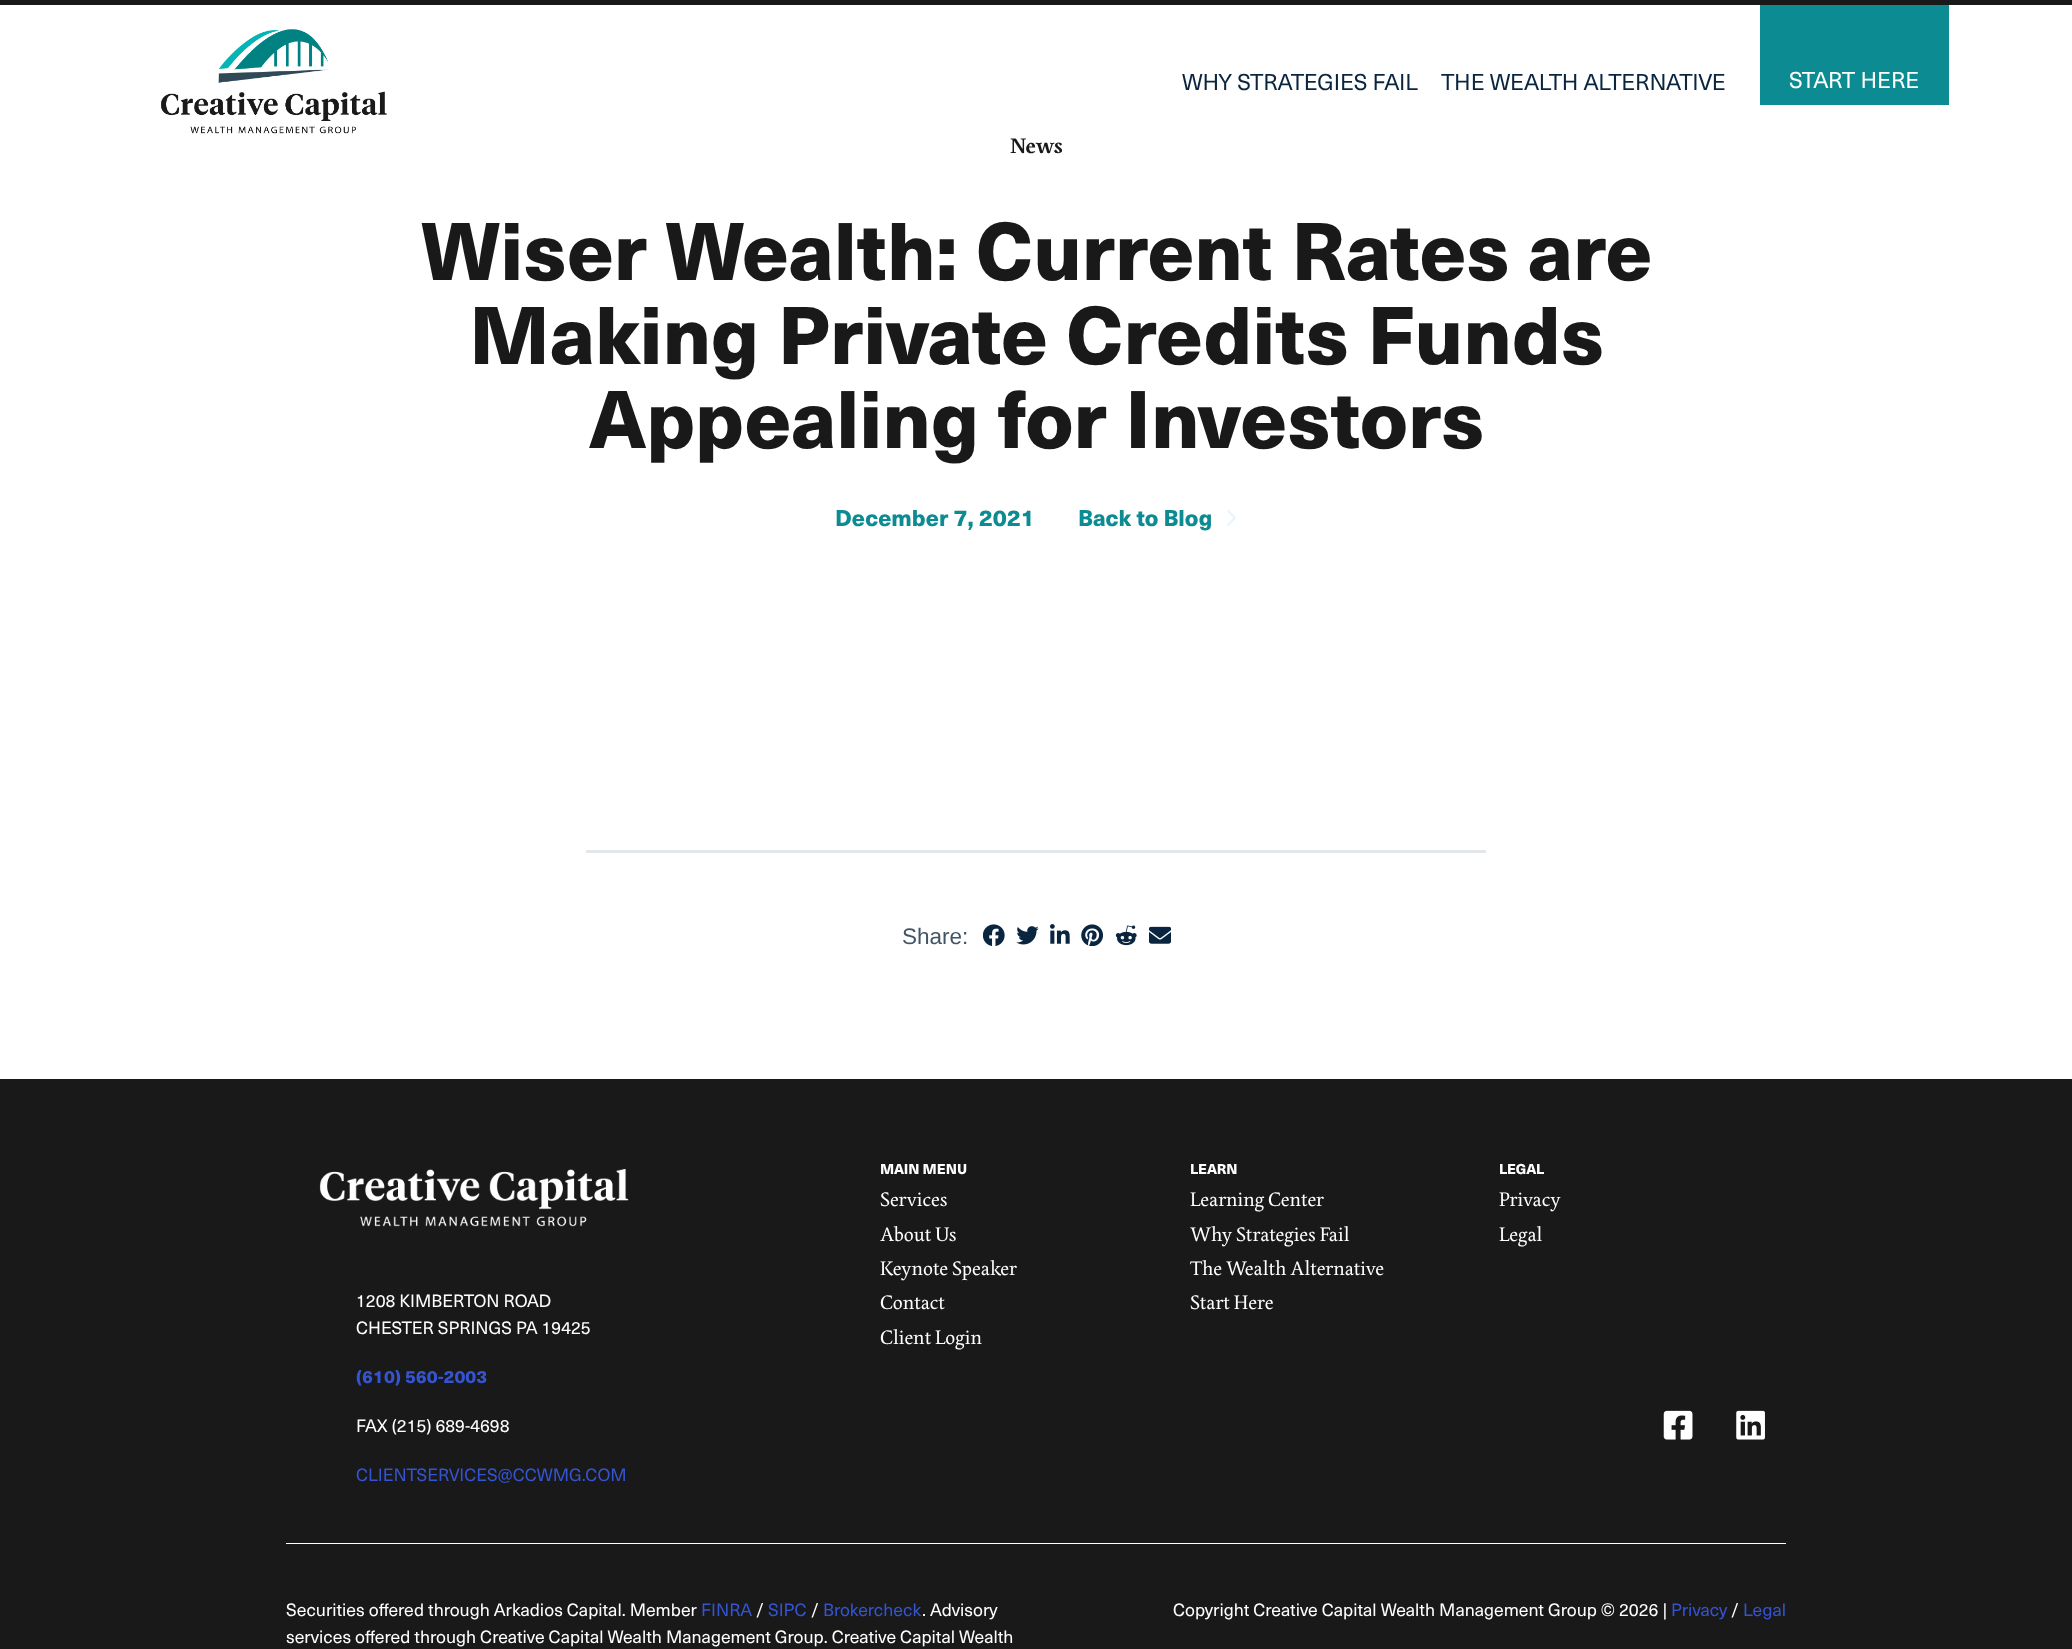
<svg xmlns="http://www.w3.org/2000/svg" width="2072" height="1649">
	<rect width="100%" height="100%" fill="#FFFFFF" />
	<rect x="0" y="0" width="2072" height="5" fill="#19191A" />
	<image x="161" y="29" width="226" height="105" href="assets/img1.png" />
	<g font-family="'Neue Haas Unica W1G'" font-size="22.5" fill="#0A2540">
		<text x="1182" y="90">WHY STRATEGIES FAIL</text>
		<text x="1441" y="90">THE WEALTH ALTERNATIVE</text>
	</g>
	<rect x="1760" y="5" width="189" height="100" fill="#0C8C92" />
	<text x="1789" y="88" font-family="'Neue Haas Unica W1G'" font-size="22.5" fill="#FFFFFF">START HERE</text>
	<text x="1010" y="153" font-family="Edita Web" font-size="22.5" font-weight="700" fill="#19191A">News</text>
	<g font-family="'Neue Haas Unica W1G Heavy'" font-size="80" font-weight="900" fill="#19191A">
		<text x="421" y="280">Wiser Wealth: Current Rates are</text>
		<text x="469" y="364">Making Private Credits Funds</text>
		<text x="589" y="448">Appealing for Investors</text>
	</g>
	<g font-family="'Neue Haas Unica W1G Heavy'" font-size="22.5" font-weight="900" fill="#0C8C92">
		<text x="835" y="526">December 7, 2021</text>
		<text x="1078" y="526">Back to Blog</text>
	</g>
	<image x="1227" y="510" width="9" height="16" href="assets/img2.png" />
	<rect x="586" y="850" width="900" height="3" fill="#E4E7EA" />
	<text x="902" y="944" font-family="Liberation Sans" font-size="22.5" fill="#425466">Share:</text>
	<image x="983" y="924" width="22" height="22" href="assets/img3.png" />
	<image x="1016" y="926" width="23" height="19" href="assets/img4.png" />
	<image x="1050" y="924" width="20" height="20" href="assets/img5.png" />
	<image x="1081" y="924" width="23" height="22" href="assets/img6.png" />
	<image x="1115" y="925" width="22" height="21" href="assets/img7.png" />
	<image x="1149" y="926" width="22" height="18" href="assets/img8.png" />
	<rect x="0" y="1079" width="2072" height="570" fill="#19191A" />
	<text x="880" y="1174" font-family="'Neue Haas Unica W1G Heavy'" font-size="14" font-weight="900" fill="#FFFFFF">MAIN MENU</text>
	<g font-family="Edita Web" font-size="21" fill="#FFFFFF">
		<text x="880" y="1206">Services</text>
		<text x="880" y="1241">About Us</text>
		<text x="880" y="1275">Keynote Speaker</text>
		<text x="880" y="1309">Contact</text>
		<text x="880" y="1344">Client Login</text>
	</g>
	<text x="1190" y="1174" font-family="'Neue Haas Unica W1G Heavy'" font-size="14" font-weight="900" fill="#FFFFFF">LEARN</text>
	<g font-family="Edita Web" font-size="21" fill="#FFFFFF">
		<text x="1190" y="1206">Learning Center</text>
		<text x="1190" y="1241">Why Strategies Fail</text>
		<text x="1190" y="1275">The Wealth Alternative</text>
		<text x="1190" y="1309">Start Here</text>
	</g>
	<text x="1499" y="1174" font-family="'Neue Haas Unica W1G Heavy'" font-size="14" font-weight="900" fill="#FFFFFF">LEGAL</text>
	<g font-family="Edita Web" font-size="21" fill="#FFFFFF">
		<text x="1499" y="1206">Privacy</text>
		<text x="1499" y="1241">Legal</text>
	</g>
	<image x="1663" y="1410" width="30" height="30" href="assets/img9.png" />
	<image x="1736" y="1410" width="29" height="30" href="assets/img10.png" />
	<image x="319" y="1169" width="310" height="58" href="assets/img11.png" />
	<g font-family="'Neue Haas Unica W1G'" font-size="17.5" fill="#FFFFFF">
		<text x="356" y="1307">1208 KIMBERTON ROAD</text>
		<text x="356" y="1334">CHESTER SPRINGS PA 19425</text>
	</g>
	<text x="356" y="1383" font-family="'Neue Haas Unica W1G Heavy'" font-size="17.5" font-weight="900" fill="#3454D1">(610) 560-2003</text>
	<text x="356" y="1432" font-family="'Neue Haas Unica W1G'" font-size="17.5" fill="#FFFFFF">FAX (215) 689-4698</text>
	<text x="356" y="1481" font-family="'Neue Haas Unica W1G'" font-size="17.5" fill="#3454D1">CLIENTSERVICES@CCWMG.COM</text>
	<rect x="286" y="1543" width="1500" height="1" fill="#FFFFFF" />
	<text x="286" y="1616" font-family="'Neue Haas Unica W1G'" font-size="17.5" fill="#FFFFFF">Securities offered through Arkadios Capital. Member</text>
	<text x="701" y="1616" font-family="'Neue Haas Unica W1G'" font-size="17.5" fill="#3454D1">FINRA</text>
	<text x="756" y="1616" font-family="'Neue Haas Unica W1G'" font-size="17.5" fill="#FFFFFF">/</text>
	<text x="768" y="1616" font-family="'Neue Haas Unica W1G'" font-size="17.5" fill="#3454D1">SIPC</text>
	<text x="811" y="1616" font-family="'Neue Haas Unica W1G'" font-size="17.5" fill="#FFFFFF">/</text>
	<text x="823" y="1616" font-family="'Neue Haas Unica W1G'" font-size="17.5" fill="#3454D1">Brokercheck</text>
	<g font-family="'Neue Haas Unica W1G'" font-size="17.5" fill="#FFFFFF">
		<text x="922" y="1616">. Advisory</text>
		<text x="286" y="1643">services offered through Creative Capital Wealth Management Group. Creative Capital Wealth</text>
		<text x="1173" y="1616">Copyright Creative Capital Wealth Management Group © 2026 |</text>
	</g>
	<text x="1671" y="1616" font-family="'Neue Haas Unica W1G'" font-size="17.5" fill="#3454D1">Privacy</text>
	<text x="1731" y="1616" font-family="'Neue Haas Unica W1G'" font-size="17.5" fill="#FFFFFF">/</text>
	<text x="1743" y="1616" font-family="'Neue Haas Unica W1G'" font-size="17.5" fill="#3454D1">Legal</text>
</svg>
